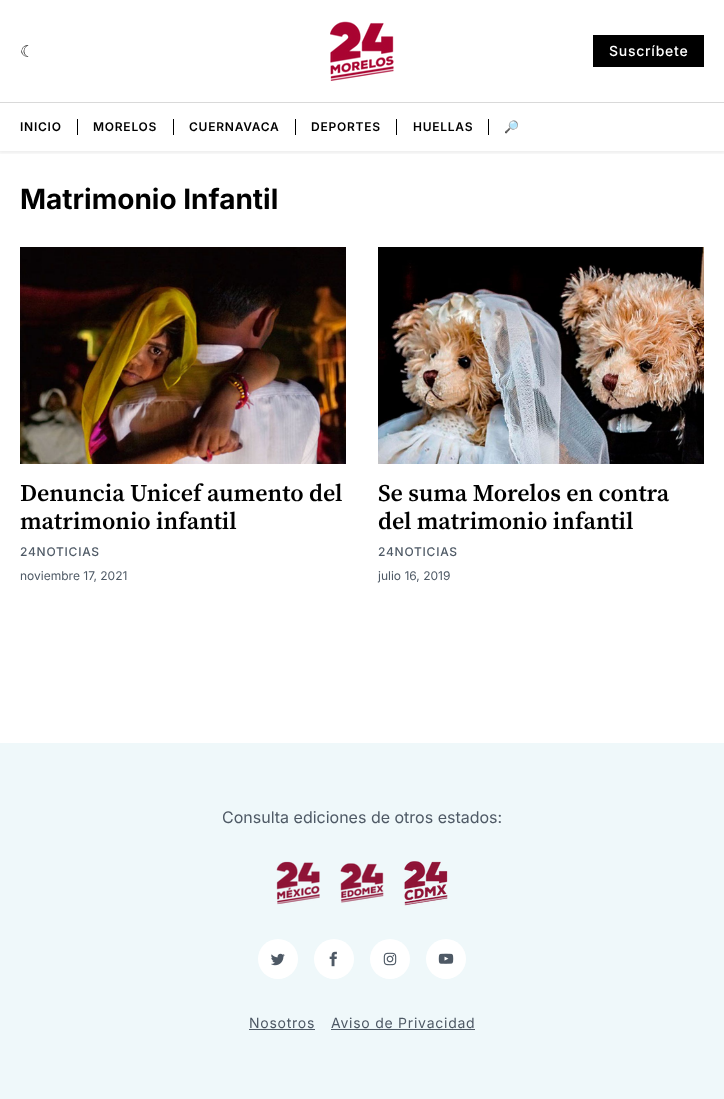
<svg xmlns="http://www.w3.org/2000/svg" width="724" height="1099">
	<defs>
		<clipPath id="clip1"><rect x="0" y="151" width="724" height="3" /></clipPath>
	</defs>
	<rect width="100%" height="100%" fill="#FFFFFF" />
	<g clip-path="url(#clip1)">
		<rect x="-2" y="-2" width="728" height="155" fill="#000000" fill-opacity="0.08" filter="blur(2px)" />
	</g>
	<rect x="0" y="102" width="724" height="1" fill="#D9D9D9" />
	<text x="20" y="57" font-family="DejaVu Sans" font-size="16" letter-spacing="0.75" fill="#000000">☾</text>
	<image x="330" y="21" width="64" height="60" href="assets/img1.png" />
	<rect x="593" y="35" width="111" height="32" fill="#000000" />
	<text x="609" y="56" font-family="Inter" font-size="14" font-weight="500" letter-spacing="0.75" fill="#FFFFFF">Suscríbete</text>
	<text x="20" y="131" font-family="Inter" font-size="12" font-weight="600" letter-spacing="0.75" fill="#000000">INICIO</text>
	<rect x="77" y="119" width="1" height="16" fill="#000000" />
	<text x="93" y="131" font-family="Inter" font-size="12" font-weight="600" letter-spacing="0.75" fill="#000000">MORELOS</text>
	<rect x="173" y="119" width="1" height="16" fill="#000000" />
	<text x="189" y="131" font-family="Inter" font-size="12" font-weight="600" letter-spacing="0.75" fill="#000000">CUERNAVACA</text>
	<rect x="295" y="119" width="1" height="16" fill="#000000" />
	<text x="311" y="131" font-family="Inter" font-size="12" font-weight="600" letter-spacing="0.75" fill="#000000">DEPORTES</text>
	<rect x="396" y="119" width="1" height="16" fill="#000000" />
	<text x="413" y="131" font-family="Inter" font-size="12" font-weight="600" letter-spacing="0.75" fill="#000000">HUELLAS</text>
	<rect x="488" y="119" width="1" height="16" fill="#000000" />
	<text x="504" y="131" font-family="Noto Color Emoji" font-size="12" font-weight="700" letter-spacing="0.75" fill="#000000">🔎</text>
	<text x="20" y="209" font-family="Inter" font-size="28" font-weight="700" fill="#000000">Matrimonio Infantil</text>
	<image x="20" y="247" width="326" height="217" href="assets/img2.png" />
	<g font-family="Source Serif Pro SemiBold" font-size="24" font-weight="600" fill="#000000">
		<text x="20" y="501">Denuncia Unicef aumento del</text>
		<text x="20" y="529">matrimonio infantil</text>
	</g>
	<text x="20" y="556" font-family="Inter" font-size="12" font-weight="500" letter-spacing="0.75" fill="#4E5965">24NOTICIAS</text>
	<text x="20" y="580" font-family="Inter" font-size="12" fill="#4E5965">noviembre 17, 2021</text>
	<image x="378" y="247" width="326" height="217" href="assets/img3.png" />
	<g font-family="Source Serif Pro SemiBold" font-size="24" font-weight="600" fill="#000000">
		<text x="378" y="501">Se suma Morelos en contra</text>
		<text x="378" y="529">del matrimonio infantil</text>
	</g>
	<text x="378" y="556" font-family="Inter" font-size="12" font-weight="500" letter-spacing="0.75" fill="#4E5965">24NOTICIAS</text>
	<text x="378" y="580" font-family="Inter" font-size="12" fill="#4E5965">julio 16, 2019</text>
	<rect x="0" y="743" width="724" height="356" fill="#EFF8FA" />
	<text x="222" y="823" font-family="Inter" font-size="16" fill="#4E5965">Consulta ediciones de otros estados:</text>
	<image x="276" y="861" width="44" height="44" href="assets/img4.png" />
	<image x="340" y="863" width="44" height="40" href="assets/img5.png" />
	<image x="404" y="861" width="44" height="45" href="assets/img6.png" />
	<circle cx="278" cy="959" r="20" fill="#FFFFFF" />
	<image x="271" y="953" width="14" height="13" href="assets/img7.png" />
	<circle cx="334" cy="959" r="20" fill="#FFFFFF" />
	<image x="329" y="951" width="8" height="16" href="assets/img8.png" />
	<circle cx="390" cy="959" r="20" fill="#FFFFFF" />
	<image x="383" y="952" width="14" height="14" href="assets/img9.png" />
	<circle cx="446" cy="959" r="20" fill="#FFFFFF" />
	<image x="438" y="953" width="16" height="11" href="assets/img10.png" />
	<text x="249" y="1028" font-family="Inter" font-size="14" letter-spacing="0.75" fill="#4E5965">Nosotros</text>
	<rect x="249" y="1029" width="66" height="1" fill="#4E5965" />
	<text x="331" y="1028" font-family="Inter" font-size="14" letter-spacing="0.75" fill="#4E5965">Aviso de Privacidad</text>
	<rect x="331" y="1029" width="144" height="1" fill="#4E5965" />
</svg>
